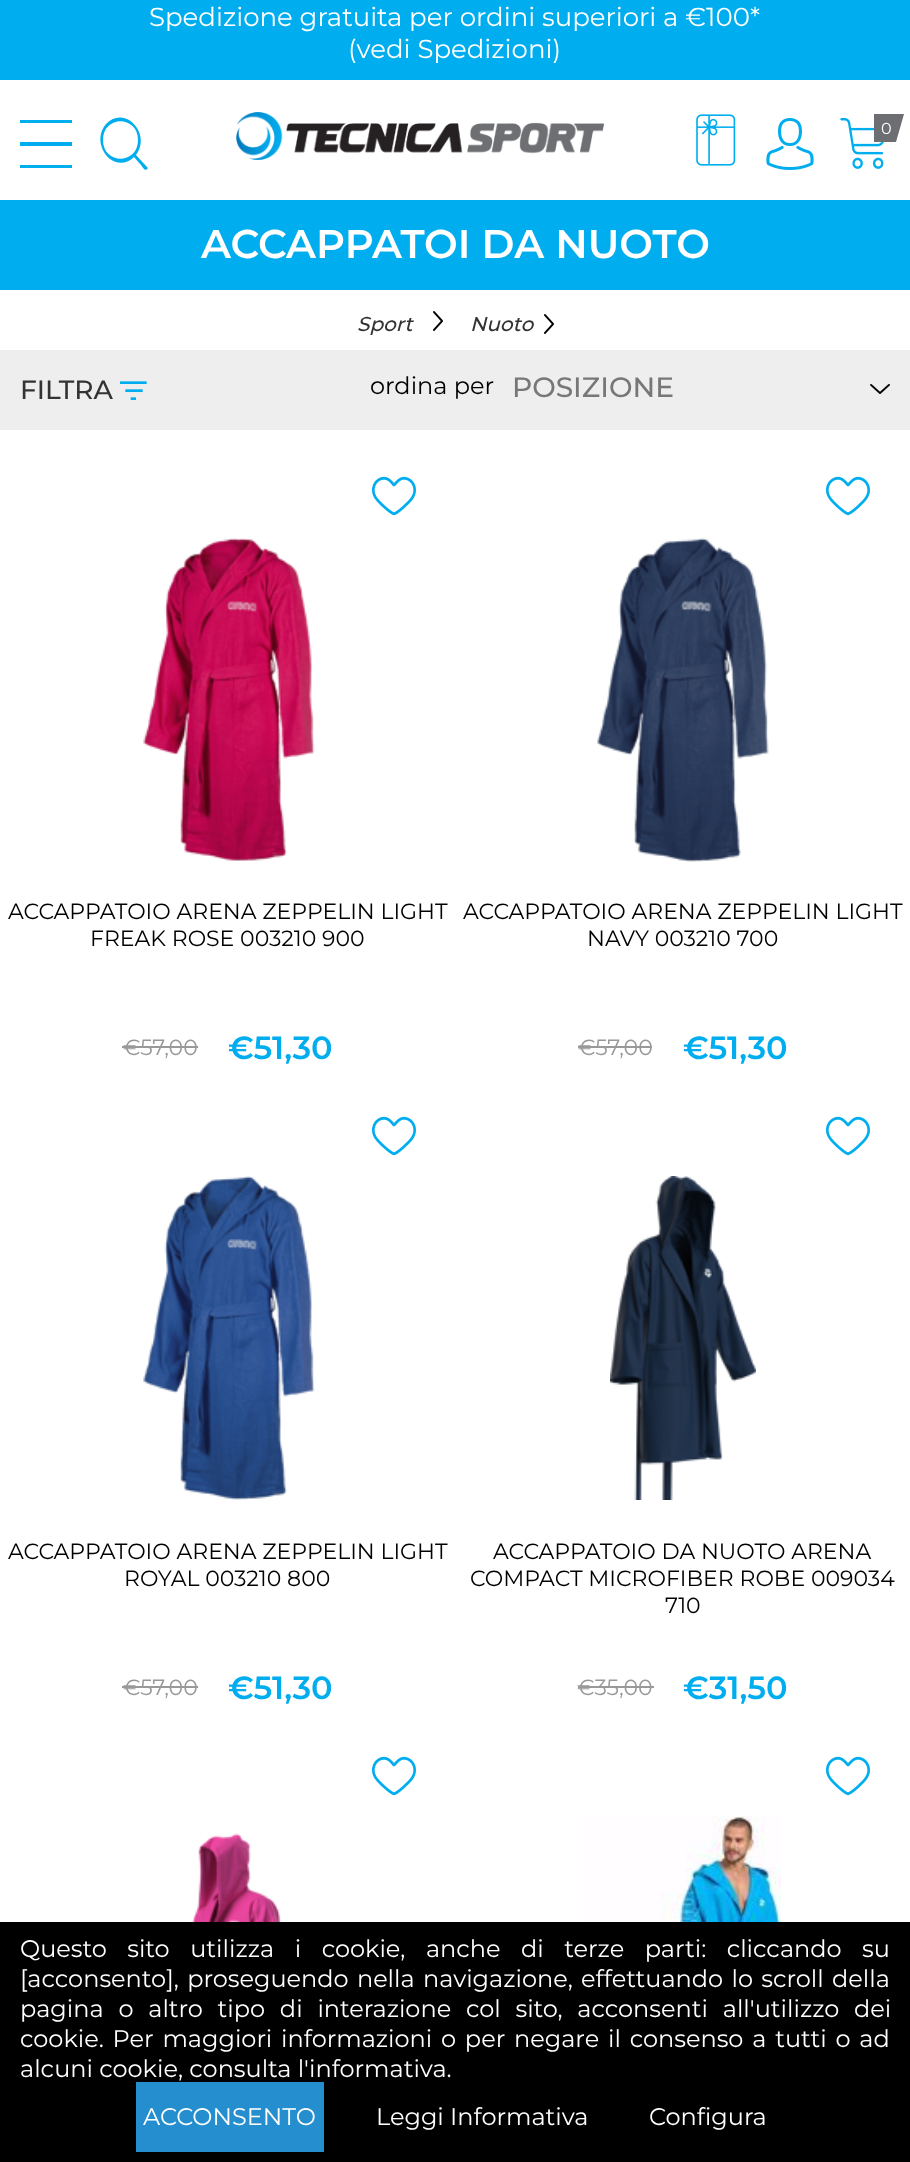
<svg xmlns="http://www.w3.org/2000/svg" width="910" height="2162">
	<rect width="100%" height="100%" fill="#FFFFFF" />
	<rect x="0" y="0" width="910" height="80" fill="#00ADEE" />
	<g font-family="Montserrat" font-size="26" fill="#FFFFFF">
		<text x="149" y="26">Spedizione gratuita per ordini superiori a €100*</text>
		<text x="348" y="58">(vedi Spedizioni)</text>
	</g>
	<path d="M20 120V123H72V120ZM20 165V168H72V165ZM20 142V146H72V142Z" fill="#00ADEE" />
	<path d="M147 167C148 168 148 169 147 169C145 172 142 166 141 165L134 157C114 176 89 144 106 124C125 104 152 134 136 155ZM103 140C103 165 138 165 138 140C138 115 103 115 103 140Z" fill="#00ADEE" />
	<image x="236" y="112" width="368" height="48" href="assets/img1.png" />
	<image x="696" y="114" width="40" height="52" href="assets/img2.png" />
	<image x="766" y="118" width="48" height="52" href="assets/img3.png" />
	<image x="840" y="118" width="44" height="51" href="assets/img4.png" />
	<rect x="874" y="114" width="22" height="28" fill="#6D6E71" />
	<text x="881" y="134" font-family="Montserrat" font-size="16" fill="#FFFFFF">0</text>
	<path d="M892 114H904L896 142Z" fill="#6D6E71" />
	<rect x="0" y="200" width="910" height="90" fill="#00ADEE" />
	<text x="201" y="258" font-family="Montserrat" font-size="40" font-weight="600" fill="#FFFFFF">ACCAPPATOI DA NUOTO</text>
	<text x="357" y="331" font-family="Montserrat" font-size="20" font-weight="500" font-style="italic" fill="#333333">Sport</text>
	<text x="428" y="331" font-family="'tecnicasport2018'" font-size="20" fill="#000000">&gt;</text>
	<text x="470" y="331" font-family="Montserrat" font-size="20" font-weight="500" font-style="italic" fill="#333333">Nuoto</text>
	<text x="539" y="334" font-family="'tecnicasport2018'" font-size="20" fill="#000000">&gt;</text>
	<rect x="0" y="350" width="910" height="80" fill="#EEEEEE" />
	<text x="20" y="399" font-family="Montserrat" font-size="26.5" font-weight="500" fill="#333333">FILTRA</text>
	<image x="120" y="381" width="27" height="19" href="assets/img5.png" />
	<text x="370" y="394" font-family="Montserrat" font-size="24" fill="#000000">ordina per</text>
	<text x="512" y="397" font-family="Montserrat" font-size="28" font-weight="500" fill="#777777">POSIZIONE</text>
	<text x="870" y="399" font-family="'tecnicasport2018'" font-size="20" fill="#000000">\</text>
	<image x="143" y="538" width="172" height="323" href="assets/img6.png" />
	<g font-family="Montserrat" font-size="22" fill="#000000">
		<text x="8" y="919">ACCAPPATOIO ARENA ZEPPELIN LIGHT</text>
		<text x="90" y="946">FREAK ROSE 003210 900</text>
	</g>
	<image x="372" y="476" width="44" height="40" href="assets/img7.png" />
	<text x="123" y="1055" font-family="Montserrat" font-size="22" fill="#999999">€57,00</text>
	<rect x="122" y="1046" width="76" height="2" fill="#999999" />
	<text x="228" y="1059" font-family="Montserrat" font-size="32" font-weight="600" fill="#00ADEE">€51,30</text>
	<image x="597" y="538" width="172" height="324" href="assets/img8.png" />
	<g font-family="Montserrat" font-size="22" fill="#000000">
		<text x="463" y="919">ACCAPPATOIO ARENA ZEPPELIN LIGHT</text>
		<text x="587" y="946">NAVY 003210 700</text>
	</g>
	<image x="826" y="476" width="44" height="40" href="assets/img7.png" />
	<text x="578" y="1055" font-family="Montserrat" font-size="22" fill="#999999">€57,00</text>
	<rect x="578" y="1046" width="74" height="2" fill="#999999" />
	<text x="683" y="1059" font-family="Montserrat" font-size="32" font-weight="600" fill="#00ADEE">€51,30</text>
	<image x="143" y="1176" width="172" height="324" href="assets/img9.png" />
	<g font-family="Montserrat" font-size="22" fill="#000000">
		<text x="8" y="1559">ACCAPPATOIO ARENA ZEPPELIN LIGHT</text>
		<text x="124" y="1586">ROYAL 003210 800</text>
	</g>
	<image x="372" y="1116" width="44" height="40" href="assets/img7.png" />
	<text x="123" y="1695" font-family="Montserrat" font-size="22" fill="#999999">€57,00</text>
	<rect x="122" y="1686" width="76" height="2" fill="#999999" />
	<text x="228" y="1699" font-family="Montserrat" font-size="32" font-weight="600" fill="#00ADEE">€51,30</text>
	<image x="610" y="1176" width="146" height="324" href="assets/img10.png" />
	<g font-family="Montserrat" font-size="22" fill="#000000">
		<text x="493" y="1559">ACCAPPATOIO DA NUOTO ARENA</text>
		<text x="470" y="1586">COMPACT MICROFIBER ROBE 009034</text>
		<text x="665" y="1613">710</text>
	</g>
	<image x="826" y="1116" width="44" height="40" href="assets/img7.png" />
	<text x="577" y="1695" font-family="Montserrat" font-size="22" fill="#999999">€35,00</text>
	<rect x="578" y="1686" width="76" height="2" fill="#999999" />
	<text x="683" y="1699" font-family="Montserrat" font-size="32" font-weight="600" fill="#00ADEE">€31,50</text>
	<image x="372" y="1756" width="44" height="40" href="assets/img7.png" />
	<image x="192" y="1833" width="89" height="89" href="assets/img11.png" />
	<image x="826" y="1756" width="44" height="40" href="assets/img7.png" />
	<image x="583" y="1816" width="198" height="106" href="assets/img12.png" />
	<rect x="0" y="1922" width="910" height="240" fill="#000000" />
	<g font-family="Montserrat" font-size="24" fill="#FFFFFF">
		<text x="20" y="1957" word-spacing="14.25">Questo sito utilizza i cookie, anche di terze parti: cliccando su</text>
		<text x="20" y="1987" word-spacing="2">[acconsento], proseguendo nella navigazione, effettuando lo scroll della</text>
		<text x="20" y="2017" word-spacing="8.5">pagina o altro tipo di interazione col sito, acconsenti all'utilizzo dei</text>
		<text x="20" y="2047" word-spacing="2.5">cookie. Per maggiori informazioni o per negare il consenso a tutti o ad</text>
		<text x="20" y="2077">alcuni cookie, consulta l'informativa.</text>
	</g>
	<rect x="136" y="2082" width="188" height="70" fill="#248ECE" />
	<g font-family="Montserrat" font-size="24" fill="#FFFFFF">
		<text x="143" y="2125">ACCONSENTO</text>
		<text x="376" y="2125">Leggi Informativa</text>
		<text x="649" y="2125">Configura</text>
	</g>
</svg>
